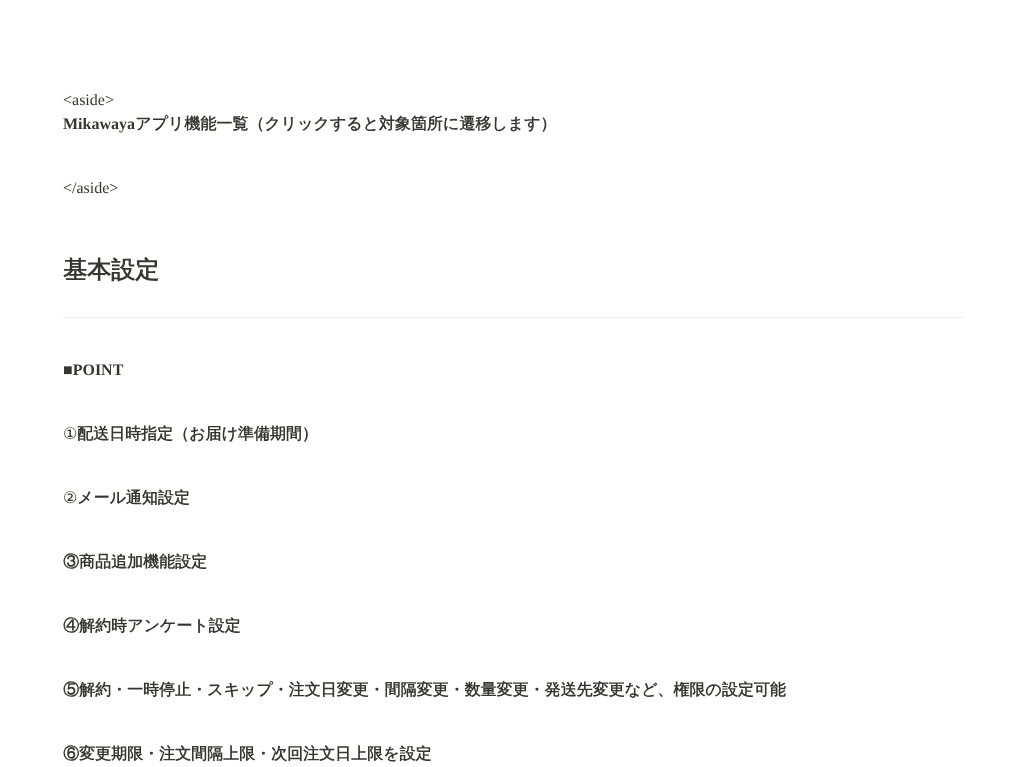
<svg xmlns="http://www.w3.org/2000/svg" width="1025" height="767">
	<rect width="100%" height="100%" fill="#FFFFFF" />
	<text x="63" y="105" font-family="Liberation Serif" font-size="16" fill="#37352F">&lt;aside&gt;</text>
	<text x="63" y="129" font-family="Liberation Serif" font-size="16" font-weight="700" fill="#37352F">Mikawaya</text>
	<text x="135" y="129" font-family="WenQuanYi Zen Hei" font-size="16" font-weight="700" fill="#37352F">アプリ機能一覧（クリックすると対象箇所に遷移します）</text>
	<text x="63" y="193" font-family="Liberation Serif" font-size="16" fill="#37352F">&lt;/aside&gt;</text>
	<text x="63" y="278" font-family="WenQuanYi Zen Hei" font-size="24" font-weight="700" fill="#37352F">基本設定</text>
	<rect x="63" y="317" width="900" height="1" fill="#EDEDEC" />
	<text x="63" y="375" font-family="Liberation Serif" font-size="16" font-weight="700" fill="#37352F">■POINT</text>
	<text x="63" y="439" font-family="DejaVu Sans" font-size="16" fill="#37352F">①</text>
	<text x="77" y="439" font-family="WenQuanYi Zen Hei" font-size="16" font-weight="700" fill="#37352F">配送日時指定（お届け準備期間）</text>
	<text x="63" y="503" font-family="DejaVu Sans" font-size="16" fill="#37352F">②</text>
	<g font-family="WenQuanYi Zen Hei" font-size="16" font-weight="700" fill="#37352F">
		<text x="77" y="503">メール通知設定</text>
		<text x="63" y="567">③商品追加機能設定</text>
		<text x="63" y="631">④解約時アンケート設定</text>
		<text x="63" y="695">⑤解約・一時停止・スキップ・注文日変更・間隔変更・数量変更・発送先変更など、権限の設定可能</text>
		<text x="63" y="759">⑥変更期限・注文間隔上限・次回注文日上限を設定</text>
	</g>
</svg>
